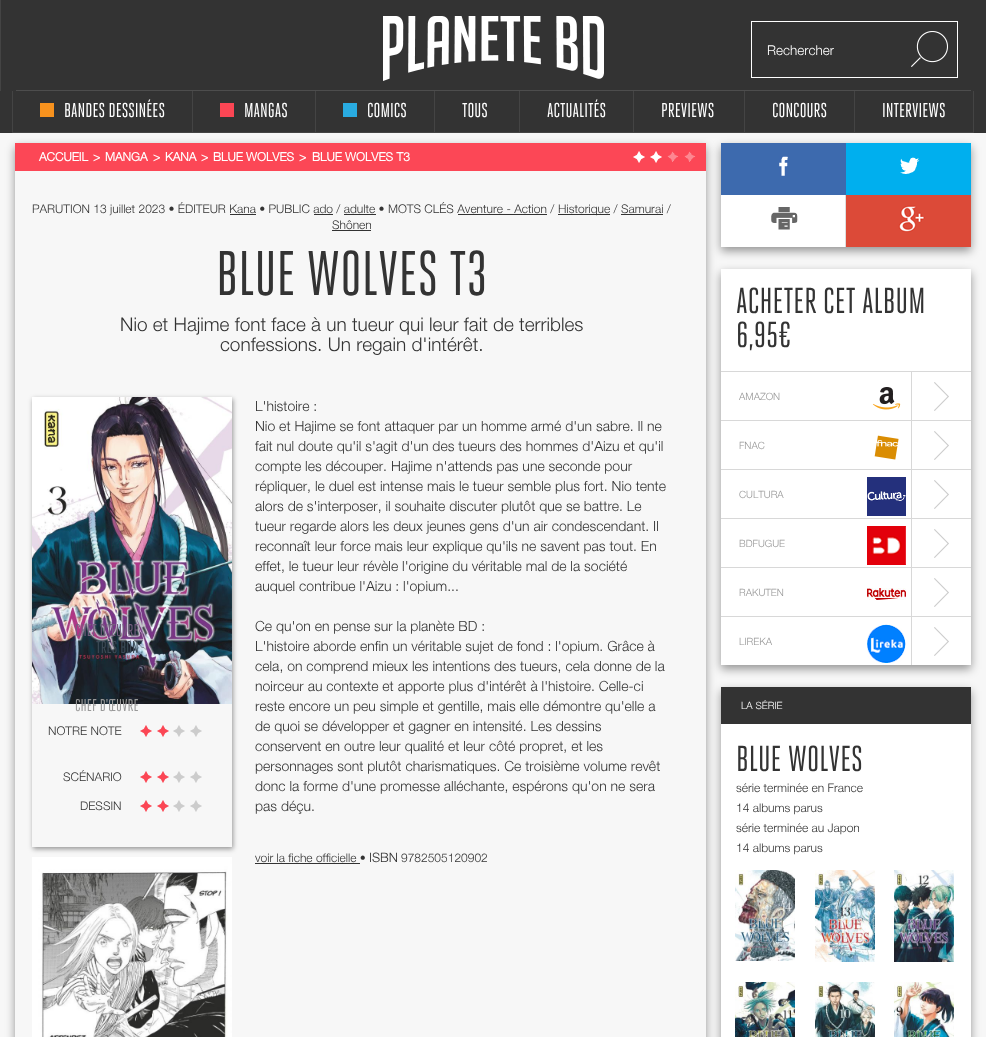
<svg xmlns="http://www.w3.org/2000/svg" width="986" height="1037">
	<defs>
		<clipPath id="clip1"><path d="M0 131H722V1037H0ZM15 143H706V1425H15Z" clip-rule="evenodd" /></clipPath>
		<clipPath id="clip2"><path d="M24 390H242V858H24ZM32 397H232V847H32Z" clip-rule="evenodd" /></clipPath>
	</defs>
	<rect width="100%" height="100%" fill="#F7F7F7" />
	<rect x="1" y="0" width="985" height="91" fill="#333333" />
	<rect x="0" y="0" width="1" height="91" fill="#444444" />
	<rect x="16" y="90" width="955" height="1" fill="#4D4D4D" />
	<image x="383" y="16" width="221" height="65" href="assets/img1.png" />
	<rect x="751.5" y="21.5" width="206" height="56" fill="none" stroke="#FFFFFF" />
	<text x="767" y="55" font-family="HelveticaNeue" font-size="13.5" font-weight="300" fill="#FFFFFF">Rechercher</text>
	<image x="911" y="31" width="37" height="36" href="assets/img2.png" />
	<rect x="0" y="91" width="986" height="42" fill="#333333" />
	<g clip-path="url(#clip1)">
		<rect x="15" y="147" width="691" height="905" fill="#000000" fill-opacity="0.4" filter="blur(5px)" />
	</g>
	<rect x="12" y="91" width="1" height="42" fill="#444444" />
	<rect x="192" y="91" width="1" height="42" fill="#444444" />
	<rect x="13" y="132" width="180" height="1" fill="#444444" />
	<rect x="40" y="103" width="14" height="14" fill="#F7921E" />
	<text x="64" y="117" font-family="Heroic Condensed" font-size="20" fill="#FFFFFF">BANDES DESSINÉES</text>
	<rect x="315" y="91" width="1" height="42" fill="#444444" />
	<rect x="193" y="132" width="123" height="1" fill="#444444" />
	<rect x="220" y="103" width="14" height="14" fill="#FB4654" />
	<text x="244" y="117" font-family="Heroic Condensed" font-size="20" fill="#FFFFFF">MANGAS</text>
	<rect x="434" y="91" width="1" height="42" fill="#444444" />
	<rect x="316" y="132" width="119" height="1" fill="#444444" />
	<rect x="343" y="103" width="14" height="14" fill="#29ABE1" />
	<text x="367" y="117" font-family="Heroic Condensed" font-size="20" fill="#FFFFFF">COMICS</text>
	<rect x="519" y="91" width="1" height="42" fill="#444444" />
	<rect x="435" y="132" width="85" height="1" fill="#444444" />
	<text x="462" y="117" font-family="Heroic Condensed" font-size="20" fill="#FFFFFF">TOUS</text>
	<rect x="633" y="91" width="1" height="42" fill="#444444" />
	<rect x="520" y="132" width="114" height="1" fill="#444444" />
	<text x="547" y="117" font-family="Heroic Condensed" font-size="20" fill="#FFFFFF">ACTUALITÉS</text>
	<rect x="15" y="143" width="691" height="28" fill="#FC4756" />
	<rect x="721" y="147" width="250" height="104" fill="#000000" fill-opacity="0.4" filter="blur(5px)" />
	<rect x="744" y="91" width="1" height="42" fill="#444444" />
	<rect x="634" y="132" width="111" height="1" fill="#444444" />
	<text x="661" y="117" font-family="Heroic Condensed" font-size="20" fill="#FFFFFF">PREVIEWS</text>
	<rect x="854" y="91" width="1" height="42" fill="#444444" />
	<rect x="745" y="132" width="110" height="1" fill="#444444" />
	<text x="772" y="117" font-family="Heroic Condensed" font-size="20" fill="#FFFFFF">CONCOURS</text>
	<rect x="973" y="91" width="1" height="42" fill="#444444" />
	<rect x="855" y="132" width="119" height="1" fill="#444444" />
	<text x="882" y="117" font-family="Heroic Condensed" font-size="20" fill="#FFFFFF">INTERVIEWS</text>
	<g font-family="HelveticaNeue" font-size="12" font-weight="700" fill="#FFFFFF">
		<text x="39" y="161">ACCUEIL</text>
		<text x="93" y="161">&gt;</text>
		<text x="105" y="161">MANGA</text>
		<text x="153" y="161">&gt;</text>
		<text x="165" y="161">KANA</text>
		<text x="201" y="161">&gt;</text>
		<text x="213" y="161">BLUE WOLVES</text>
		<text x="299" y="161">&gt;</text>
		<text x="312" y="161">BLUE WOLVES T3</text>
	</g>
	<image x="633" y="151" width="12" height="12" href="assets/img3.png" />
	<image x="650" y="151" width="12" height="12" href="assets/img3.png" />
	<image x="667" y="151" width="12" height="11" href="assets/img4.png" />
	<image x="684" y="151" width="12" height="11" href="assets/img4.png" />
	<text x="32" y="213" font-family="HelveticaNeue" font-size="12" font-weight="300" fill="#333333">PARUTION 13 juillet 2023 • ÉDITEUR Kana • PUBLIC ado / adulte • MOTS CLÉS Aventure - Action /</text>
	<rect x="558" y="214" width="52" height="1" fill="#333333" />
	<text x="558" y="213" font-family="HelveticaNeue" font-size="12" font-weight="300" fill="#333333">Historique / Samurai /</text>
	<rect x="230" y="214" width="26" height="1" fill="#333333" />
	<rect x="314" y="214" width="19" height="1" fill="#333333" />
	<rect x="344" y="214" width="32" height="1" fill="#333333" />
	<rect x="458" y="214" width="89" height="1" fill="#333333" />
	<rect x="621" y="214" width="42" height="1" fill="#333333" />
	<text x="332" y="229" font-family="HelveticaNeue" font-size="12" font-weight="300" fill="#333333">Shônen</text>
	<rect x="332" y="230" width="39" height="1" fill="#333333" />
	<text x="216" y="295" font-family="Heroic Condensed" font-size="63" fill="#333333">BLUE WOLVES T3</text>
	<g font-family="HelveticaNeue" font-size="19" font-weight="300" fill="#333333">
		<text x="120" y="331">Nio et Hajime font face à un tueur qui leur fait de terribles</text>
		<text x="220" y="351">confessions. Un regain d'intérêt.</text>
	</g>
	<g clip-path="url(#clip2)">
		<rect x="33" y="399" width="200" height="450" fill="#000000" fill-opacity="0.4" filter="blur(2.5px)" />
	</g>
	<image x="32" y="397" width="200" height="307" href="assets/img5.png" />
	<text x="75" y="636" font-family="Heroic Condensed" font-size="17" fill="#755E7F">CHEF D'ŒUVRE</text>
	<text x="96" y="653" font-family="Heroic Condensed" font-size="17" fill="#3D4B57">TRÈS BON</text>
	<text x="48" y="735" font-family="HelveticaNeue" font-size="12" font-weight="300" fill="#333333">NOTRE NOTE</text>
	<image x="140" y="725" width="12" height="12" href="assets/img6.png" />
	<image x="157" y="725" width="12" height="12" href="assets/img6.png" />
	<image x="173" y="725" width="12" height="12" href="assets/img7.png" />
	<image x="190" y="725" width="12" height="12" href="assets/img7.png" />
	<text x="75" y="711" font-family="Heroic Condensed" font-size="17" fill="#999999">CHEF D'ŒUVRE</text>
	<text x="80" y="810" font-family="HelveticaNeue" font-size="12" font-weight="300" fill="#333333">DESSIN</text>
	<image x="140" y="800" width="12" height="12" href="assets/img6.png" />
	<image x="157" y="800" width="12" height="12" href="assets/img6.png" />
	<image x="173" y="800" width="12" height="12" href="assets/img7.png" />
	<image x="190" y="800" width="12" height="12" href="assets/img7.png" />
	<text x="63" y="781" font-family="HelveticaNeue" font-size="12" font-weight="300" fill="#333333">SCÉNARIO</text>
	<image x="140" y="771" width="12" height="12" href="assets/img6.png" />
	<image x="157" y="771" width="12" height="12" href="assets/img6.png" />
	<image x="173" y="771" width="12" height="12" href="assets/img7.png" />
	<image x="190" y="771" width="12" height="12" href="assets/img7.png" />
	<image x="32" y="857" width="200" height="180" href="assets/img8.png" />
	<g font-family="HelveticaNeue" font-size="14" font-weight="300" fill="#333333">
		<text x="255" y="411">L'histoire :</text>
		<text x="255" y="431">Nio et Hajime se font attaquer par un homme armé d'un sabre. Il ne</text>
		<text x="255" y="451">fait nul doute qu'il s'agit d'un des tueurs des hommes d'Aizu et qu'il</text>
		<text x="255" y="471">compte les découper. Hajime n'attends pas une seconde pour</text>
		<text x="255" y="491">répliquer, le duel est intense mais le tueur semble plus fort. Nio tente</text>
		<text x="255" y="511">alors de s'interposer, il souhaite discuter plutôt que se battre. Le</text>
		<text x="255" y="531">tueur regarde alors les deux jeunes gens d'un air condescendant. Il</text>
		<text x="255" y="551">reconnaît leur force mais leur explique qu'ils ne savent pas tout. En</text>
		<text x="255" y="571">effet, le tueur leur révèle l'origine du véritable mal de la société</text>
		<text x="255" y="591">auquel contribue l'Aizu : l'opium...</text>
		<text x="255" y="631">Ce qu'on en pense sur la planète BD :</text>
		<text x="255" y="651">L'histoire aborde enfin un véritable sujet de fond : l'opium. Grâce à</text>
		<text x="255" y="671">cela, on comprend mieux les intentions des tueurs, cela donne de la</text>
		<text x="255" y="691">noirceur au contexte et apporte plus d'intérêt à l'histoire. Celle-ci</text>
		<text x="255" y="711">reste encore un peu simple et gentille, mais elle démontre qu'elle a</text>
		<text x="255" y="731">de quoi se développer et gagner en intensité. Les dessins</text>
		<text x="255" y="751">conservent en outre leur qualité et leur côté propret, et les</text>
		<text x="255" y="771">personnages sont plutôt charismatiques. Ce troisième volume revêt</text>
		<text x="255" y="791">donc la forme d'une promesse alléchante, espérons qu'on ne sera</text>
		<text x="255" y="811">pas déçu.</text>
	</g>
	<text x="255" y="862" font-family="HelveticaNeue" font-size="12" font-weight="300" fill="#333333">voir la fiche officielle •</text>
	<rect x="255" y="863" width="105" height="1" fill="#333333" />
	<text x="369" y="862" font-family="HelveticaNeue" font-size="13" font-weight="300" fill="#333333">ISBN</text>
	<text x="401" y="862" font-family="HelveticaNeue" font-size="12" font-weight="300" fill="#333333">9782505120902</text>
	<rect x="721" y="195" width="124" height="52" fill="#FFFFFF" />
	<rect x="721" y="143" width="125" height="52" fill="#3D6AAE" />
	<image x="779" y="156" width="9" height="20" href="assets/img9.png" />
	<rect x="846" y="143" width="125" height="52" fill="#00AFEE" />
	<image x="900" y="157" width="20" height="17" href="assets/img10.png" />
	<image x="771" y="207" width="27" height="23" href="assets/img11.png" />
	<rect x="846" y="195" width="125" height="52" fill="#DC4A38" />
	<rect x="845" y="195" width="1" height="52" fill="#DEDEDE" />
	<image x="898" y="205" width="27" height="28" href="assets/img12.png" />
	<rect x="721" y="273" width="250" height="396" fill="#000000" fill-opacity="0.4" filter="blur(5px)" />
	<rect x="721" y="269" width="250" height="396" fill="#FFFFFF" />
	<g font-family="Heroic Condensed" font-size="36" fill="#333333">
		<text x="736" y="313">ACHETER CET ALBUM</text>
		<text x="736" y="347">6,95€</text>
	</g>
	<rect x="721" y="371" width="250" height="1" fill="#D8D8D8" />
	<text x="739" y="400" font-family="HelveticaNeue" font-size="10" font-weight="300" fill="#999999">AMAZON</text>
	<image x="872" y="387" width="29" height="23" href="assets/img13.png" />
	<image x="934" y="382" width="15" height="29" href="assets/img14.png" />
	<rect x="911" y="372" width="1" height="48" fill="#D8D8D8" />
	<rect x="721" y="420" width="250" height="1" fill="#D8D8D8" />
	<text x="739" y="449" font-family="HelveticaNeue" font-size="10" font-weight="300" fill="#999999">FNAC</text>
	<image x="874" y="435" width="25" height="25" href="assets/img15.png" />
	<image x="934" y="431" width="15" height="29" href="assets/img14.png" />
	<rect x="911" y="421" width="1" height="48" fill="#D8D8D8" />
	<rect x="721" y="469" width="250" height="1" fill="#D8D8D8" />
	<text x="739" y="498" font-family="HelveticaNeue" font-size="10" font-weight="300" fill="#999999">CULTURA</text>
	<image x="867" y="477" width="39" height="39" href="assets/img16.png" />
	<image x="934" y="480" width="15" height="29" href="assets/img14.png" />
	<rect x="911" y="470" width="1" height="48" fill="#D8D8D8" />
	<rect x="721" y="518" width="250" height="1" fill="#D8D8D8" />
	<text x="739" y="547" font-family="HelveticaNeue" font-size="10" font-weight="300" fill="#999999">BDFUGUE</text>
	<image x="867" y="526" width="39" height="39" href="assets/img17.png" />
	<image x="934" y="529" width="15" height="29" href="assets/img14.png" />
	<rect x="911" y="519" width="1" height="48" fill="#D8D8D8" />
	<rect x="721" y="567" width="250" height="1" fill="#D8D8D8" />
	<text x="739" y="596" font-family="HelveticaNeue" font-size="10" font-weight="300" fill="#999999">RAKUTEN</text>
	<image x="867" y="588" width="39" height="12" href="assets/img18.png" />
	<image x="934" y="578" width="15" height="29" href="assets/img14.png" />
	<rect x="911" y="568" width="1" height="48" fill="#D8D8D8" />
	<rect x="721" y="616" width="250" height="1" fill="#D8D8D8" />
	<text x="739" y="645" font-family="HelveticaNeue" font-size="10" font-weight="300" fill="#999999">LIREKA</text>
	<image x="867" y="624" width="39" height="39" href="assets/img19.png" />
	<image x="934" y="627" width="15" height="29" href="assets/img14.png" />
	<rect x="911" y="617" width="1" height="48" fill="#D8D8D8" />
	<rect x="721" y="691" width="250" height="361" fill="#000000" fill-opacity="0.4" filter="blur(5px)" />
	<rect x="721" y="724" width="250" height="313" fill="#FFFFFF" />
	<rect x="721" y="687" width="250" height="37" fill="#333333" />
	<text x="741" y="709" font-family="HelveticaNeue" font-size="10" font-weight="300" fill="#FFFFFF">LA SÉRIE</text>
	<text x="736" y="771" font-family="Heroic Condensed" font-size="36" fill="#333333">BLUE WOLVES</text>
	<g font-family="HelveticaNeue" font-size="12" font-weight="300" fill="#333333">
		<text x="736" y="792">série terminée en France</text>
		<text x="736" y="812">14 albums parus</text>
		<text x="736" y="832">série terminée au Japon</text>
		<text x="736" y="852">14 albums parus</text>
	</g>
	<image x="735" y="870" width="60" height="91" href="assets/img20.png" />
	<image x="815" y="870" width="60" height="92" href="assets/img21.png" />
	<image x="894" y="870" width="60" height="92" href="assets/img22.png" />
	<image x="735" y="982" width="60" height="55" href="assets/img23.png" />
	<image x="815" y="982" width="60" height="55" href="assets/img24.png" />
	<image x="894" y="982" width="60" height="55" href="assets/img25.png" />
</svg>
